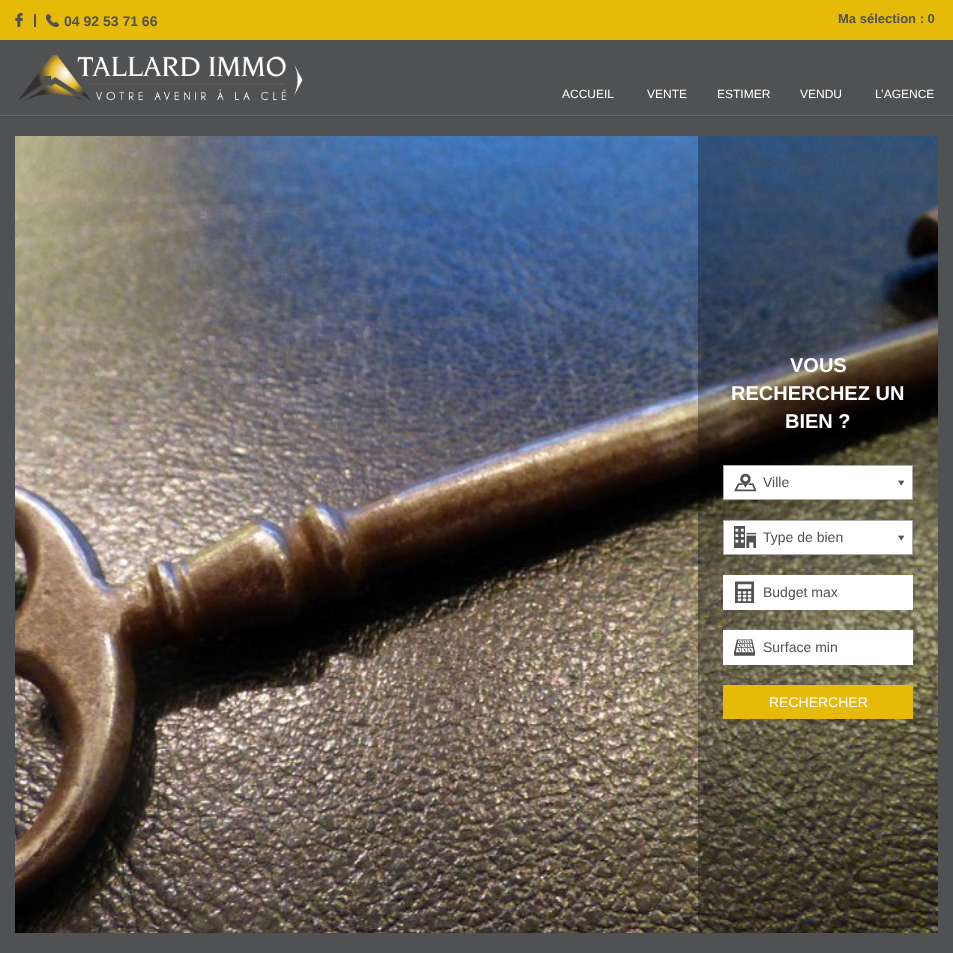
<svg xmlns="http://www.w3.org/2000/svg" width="953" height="953">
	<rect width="100%" height="100%" fill="#505152" />
	<rect x="0" y="0" width="953" height="40" fill="#E5BA09" />
	<image x="15" y="13" width="8" height="14" href="assets/img1.png" />
	<rect x="34" y="14" width="2" height="13" fill="#505152" />
	<image x="46" y="14" width="13" height="13" href="assets/img2.png" />
	<text x="64" y="26" font-family="Liberation Sans" font-size="14" font-weight="700" fill="#505152">04 92 53 71 66</text>
	<text x="838" y="23" font-family="Liberation Sans" font-size="13" font-weight="700" fill="#505152">Ma sélection : 0</text>
	<rect x="0" y="115" width="953" height="1" fill="#666666" />
	<image x="18" y="55" width="285" height="47" href="assets/img3.png" />
	<g font-family="Liberation Sans" font-size="12" fill="#FFFFFF">
		<text x="562" y="98">ACCUEIL</text>
		<text x="647" y="98">VENTE</text>
		<text x="717" y="98">ESTIMER</text>
		<text x="800" y="98">VENDU</text>
		<text x="875" y="98">L’AGENCE</text>
	</g>
	<image x="15" y="136" width="923" height="797" href="assets/img4.png" />
	<rect x="698" y="136" width="240" height="797" fill="#000000" fill-opacity="0.3" />
	<g font-family="Liberation Sans" font-size="20" font-weight="700" fill="#FFFFFF">
		<text x="790" y="372">VOUS</text>
		<text x="731" y="400">RECHERCHEZ UN</text>
		<text x="785" y="428">BIEN ?</text>
	</g>
	<rect x="724" y="466" width="188" height="33" fill="#FFFFFF" />
	<image x="734" y="473" width="22" height="19" href="assets/img5.png" />
	<rect x="723.5" y="465.5" width="189" height="34" fill="none" stroke="#AAAAAA" />
	<text x="763" y="487" font-family="Liberation Sans" font-size="14" fill="#505152">Ville</text>
	<image x="898" y="480" width="7" height="6" href="assets/img6.png" />
	<rect x="724" y="521" width="188" height="33" fill="#FFFFFF" />
	<image x="734" y="526" width="22" height="22" href="assets/img7.png" />
	<rect x="723.5" y="520.5" width="189" height="34" fill="none" stroke="#AAAAAA" />
	<text x="763" y="542" font-family="Liberation Sans" font-size="14" fill="#505152">Type de bien</text>
	<image x="898" y="535" width="7" height="6" href="assets/img6.png" />
	<rect x="723" y="575" width="190" height="35" fill="#FFFFFF" />
	<image x="735" y="581" width="19" height="22" href="assets/img8.png" />
	<text x="763" y="597" font-family="Liberation Sans" font-size="14" fill="#505152">Budget max</text>
	<rect x="723" y="630" width="190" height="35" fill="#FFFFFF" />
	<image x="734" y="639" width="21" height="17" href="assets/img9.png" />
	<text x="763" y="652" font-family="Liberation Sans" font-size="14" fill="#505152">Surface min</text>
	<rect x="723" y="685" width="190" height="34" fill="#E5BA09" />
	<text x="769" y="707" font-family="Liberation Sans" font-size="14" fill="#FFFFFF">RECHERCHER</text>
</svg>
